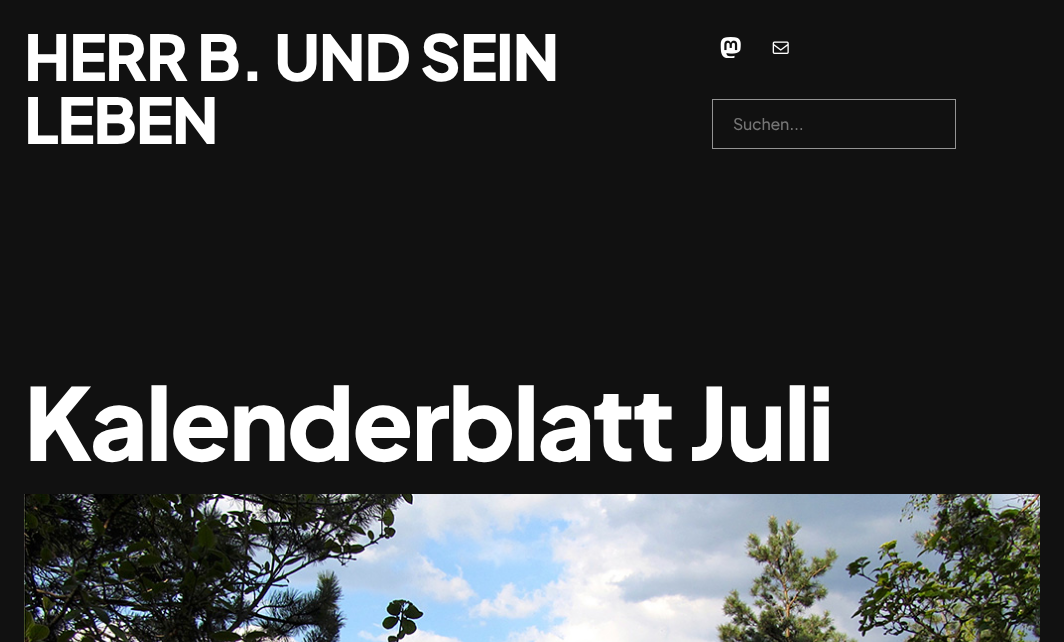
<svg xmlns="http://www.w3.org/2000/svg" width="1064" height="642">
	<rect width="100%" height="100%" fill="#111111" />
	<g font-family="Plus Jakarta Sans" font-size="63.25" font-weight="800" letter-spacing="-1.25" fill="#FFFFFF">
		<text x="24" y="81">HERR B. UND SEIN</text>
		<text x="24" y="144">LEBEN</text>
	</g>
	<image x="720" y="37" width="21" height="21" href="assets/img1.png" />
	<image x="772" y="41" width="17" height="13" href="assets/img2.png" />
	<rect x="712.5" y="99.5" width="243" height="49" fill="none" stroke="#949494" />
	<text x="733" y="130" font-family="Plus Jakarta Sans" font-size="16" font-weight="500" letter-spacing="-0.25" fill="#757575">Suchen...</text>
	<text x="24" y="461" font-family="Plus Jakarta Sans" font-size="100" font-weight="800" letter-spacing="-2" fill="#FFFFFF">Kalenderblatt Juli</text>
	<image x="24" y="494" width="1016" height="148" href="assets/img3.png" />
</svg>
